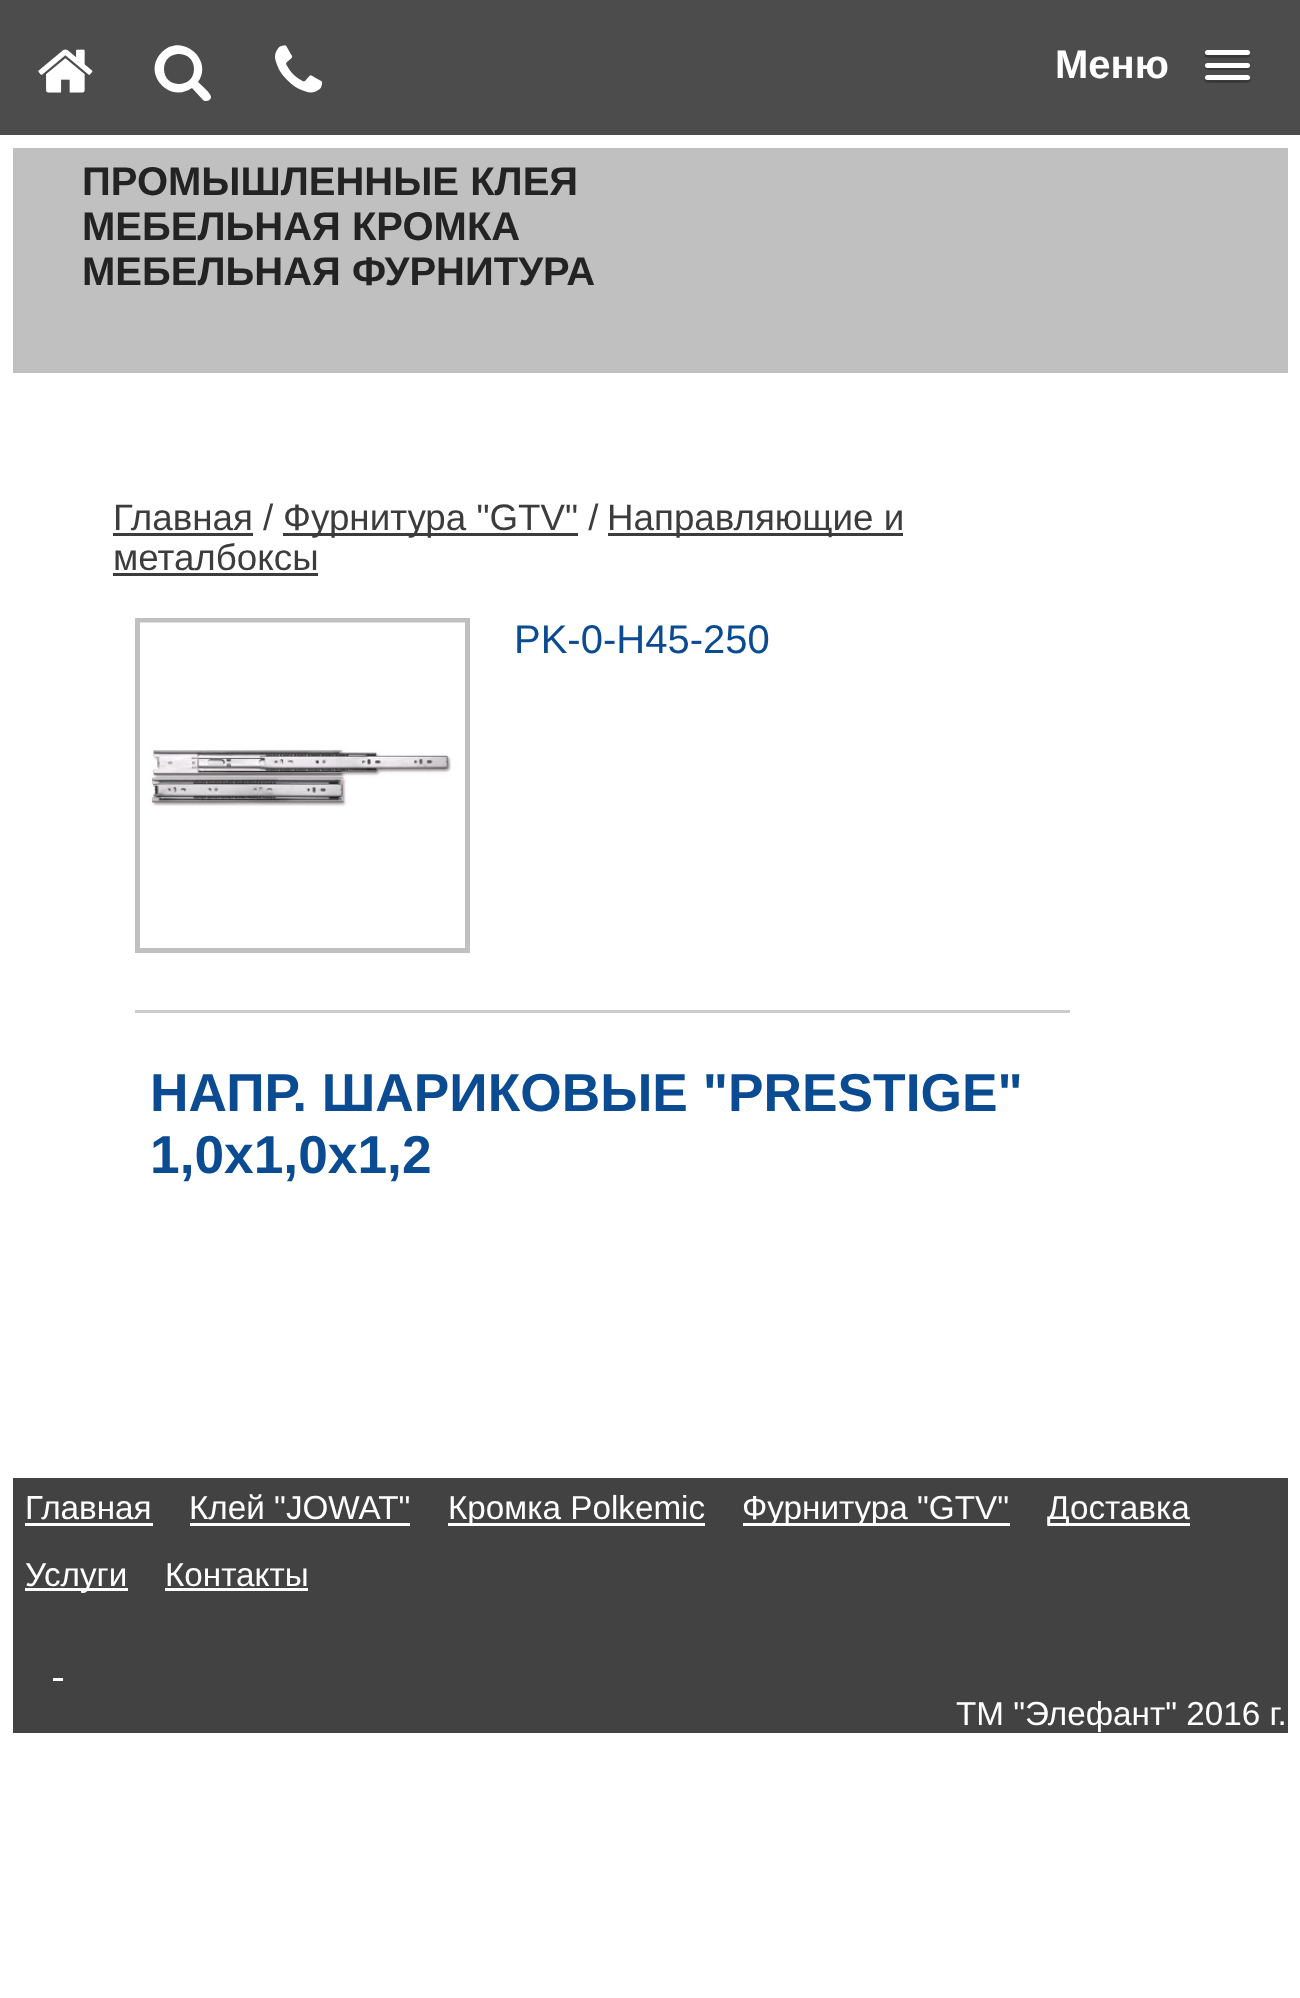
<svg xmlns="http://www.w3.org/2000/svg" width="1300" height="1998">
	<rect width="100%" height="100%" fill="#FFFFFF" />
	<rect x="0" y="0" width="1300" height="135" fill="#4C4C4C" />
	<image x="38" y="49" width="55" height="44" href="assets/img1.png" />
	<path d="M194 69C194 89 164 89 164 69C164 49 194 49 194 69ZM211 97C211 93 201 85 198 82C214 60 182 32 162 52C141 73 169 104 192 88L203 100C204 101 205 101 206 101C209 101 211 99 211 97Z" fill="#FFFFFF" />
	<image x="275" y="45" width="48" height="48" href="assets/img2.png" />
	<text x="1055" y="78" font-family="Liberation Sans" font-size="40" font-weight="700" fill="#FFFFFF">Меню</text>
	<path d="M1205 54C1202 58 1210 58 1214 58H1241C1245 58 1253 58 1250 54L1248 55H1207Z" fill="#393939" />
	<rect x="1205" y="50" width="45" height="5" rx="2.5" fill="#FFFFFF" />
	<path d="M1205 66C1202 71 1214 70 1214 70H1241C1241 70 1253 71 1250 66C1249 67 1248 68 1248 68H1208C1207 68 1206 67 1205 66Z" fill="#393939" />
	<rect x="1205" y="63" width="45" height="5" rx="2.5" fill="#FFFFFF" />
	<path d="M1205 79C1202 83 1210 83 1214 83H1241C1245 83 1253 83 1250 79L1248 80H1207Z" fill="#393939" />
	<rect x="1205" y="75" width="45" height="5" rx="2.5" fill="#FFFFFF" />
	<rect x="13" y="148" width="1275" height="225" fill="#C0C0C0" />
	<g font-family="Liberation Sans" font-size="40" font-weight="700" fill="#232323">
		<text x="82" y="195">ПРОМЫШЛЕННЫЕ КЛЕЯ</text>
		<text x="82" y="240">МЕБЕЛЬНАЯ КРОМКА</text>
		<text x="82" y="285">МЕБЕЛЬНАЯ ФУРНИТУРА</text>
	</g>
	<text x="113" y="530" font-family="Liberation Sans" font-size="36.75" fill="#3C3C3C">Главная /</text>
	<rect x="113" y="533" width="140" height="3" fill="#3C3C3C" />
	<rect x="283" y="533" width="295" height="3" fill="#3C3C3C" />
	<text x="283" y="530" font-family="Liberation Sans" font-size="36.75" fill="#3C3C3C">Фурнитура "GTV" /</text>
	<rect x="608" y="533" width="295" height="3" fill="#3C3C3C" />
	<g font-family="Liberation Sans" font-size="36.75" fill="#3C3C3C">
		<text x="607" y="530">Направляющие и</text>
		<text x="113" y="570">металбоксы</text>
	</g>
	<rect x="113" y="573" width="205" height="3" fill="#3C3C3C" />
	<rect x="137.5" y="620.5" width="330" height="330" fill="none" stroke="#C0C0C0" stroke-width="5" />
	<image x="140" y="622" width="325" height="185" href="assets/img3.png" />
	<text x="514" y="653" font-family="Liberation Sans" font-size="40" fill="#0A4B91">PK-0-H45-250</text>
	<rect x="135" y="1010" width="935" height="3" fill="#CCCCCC" />
	<g font-family="Liberation Sans" font-size="53.3" font-weight="700" fill="#0A4B91">
		<text x="150" y="1111">НАПР. ШАРИКОВЫЕ "PRESTIGE"</text>
		<text x="150" y="1173">1,0x1,0x1,2</text>
	</g>
	<rect x="13" y="1478" width="1275" height="255" fill="#424242" />
	<text x="25" y="1519" font-family="Liberation Sans" font-size="33.25" fill="#FFFFFF">Главная</text>
	<rect x="25" y="1523" width="128" height="3" fill="#FFFFFF" />
	<text x="189" y="1519" font-family="Liberation Sans" font-size="33.25" fill="#FFFFFF">Клей "JOWAT"</text>
	<rect x="190" y="1523" width="220" height="3" fill="#FFFFFF" />
	<rect x="448" y="1523" width="257" height="3" fill="#FFFFFF" />
	<text x="448" y="1519" font-family="Liberation Sans" font-size="33.25" fill="#FFFFFF">Кромка Polkemic</text>
	<rect x="743" y="1523" width="267" height="3" fill="#FFFFFF" />
	<text x="742" y="1519" font-family="Liberation Sans" font-size="33.25" fill="#FFFFFF">Фурнитура "GTV"</text>
	<rect x="1048" y="1523" width="142" height="3" fill="#FFFFFF" />
	<text x="1047" y="1519" font-family="Liberation Sans" font-size="33.25" fill="#FFFFFF">Доставка</text>
	<rect x="25" y="1588" width="103" height="3" fill="#FFFFFF" />
	<g font-family="Liberation Sans" font-size="33.25" fill="#FFFFFF">
		<text x="25" y="1586">Услуги</text>
		<text x="165" y="1586">Контакты</text>
	</g>
	<rect x="165" y="1588" width="143" height="3" fill="#FFFFFF" />
	<rect x="53" y="1678" width="10" height="3" fill="#FFFFFF" />
	<text x="956" y="1725" font-family="Liberation Sans" font-size="33.25" fill="#FFFFFF">ТМ "Элефант" 2016 г.</text>
</svg>
